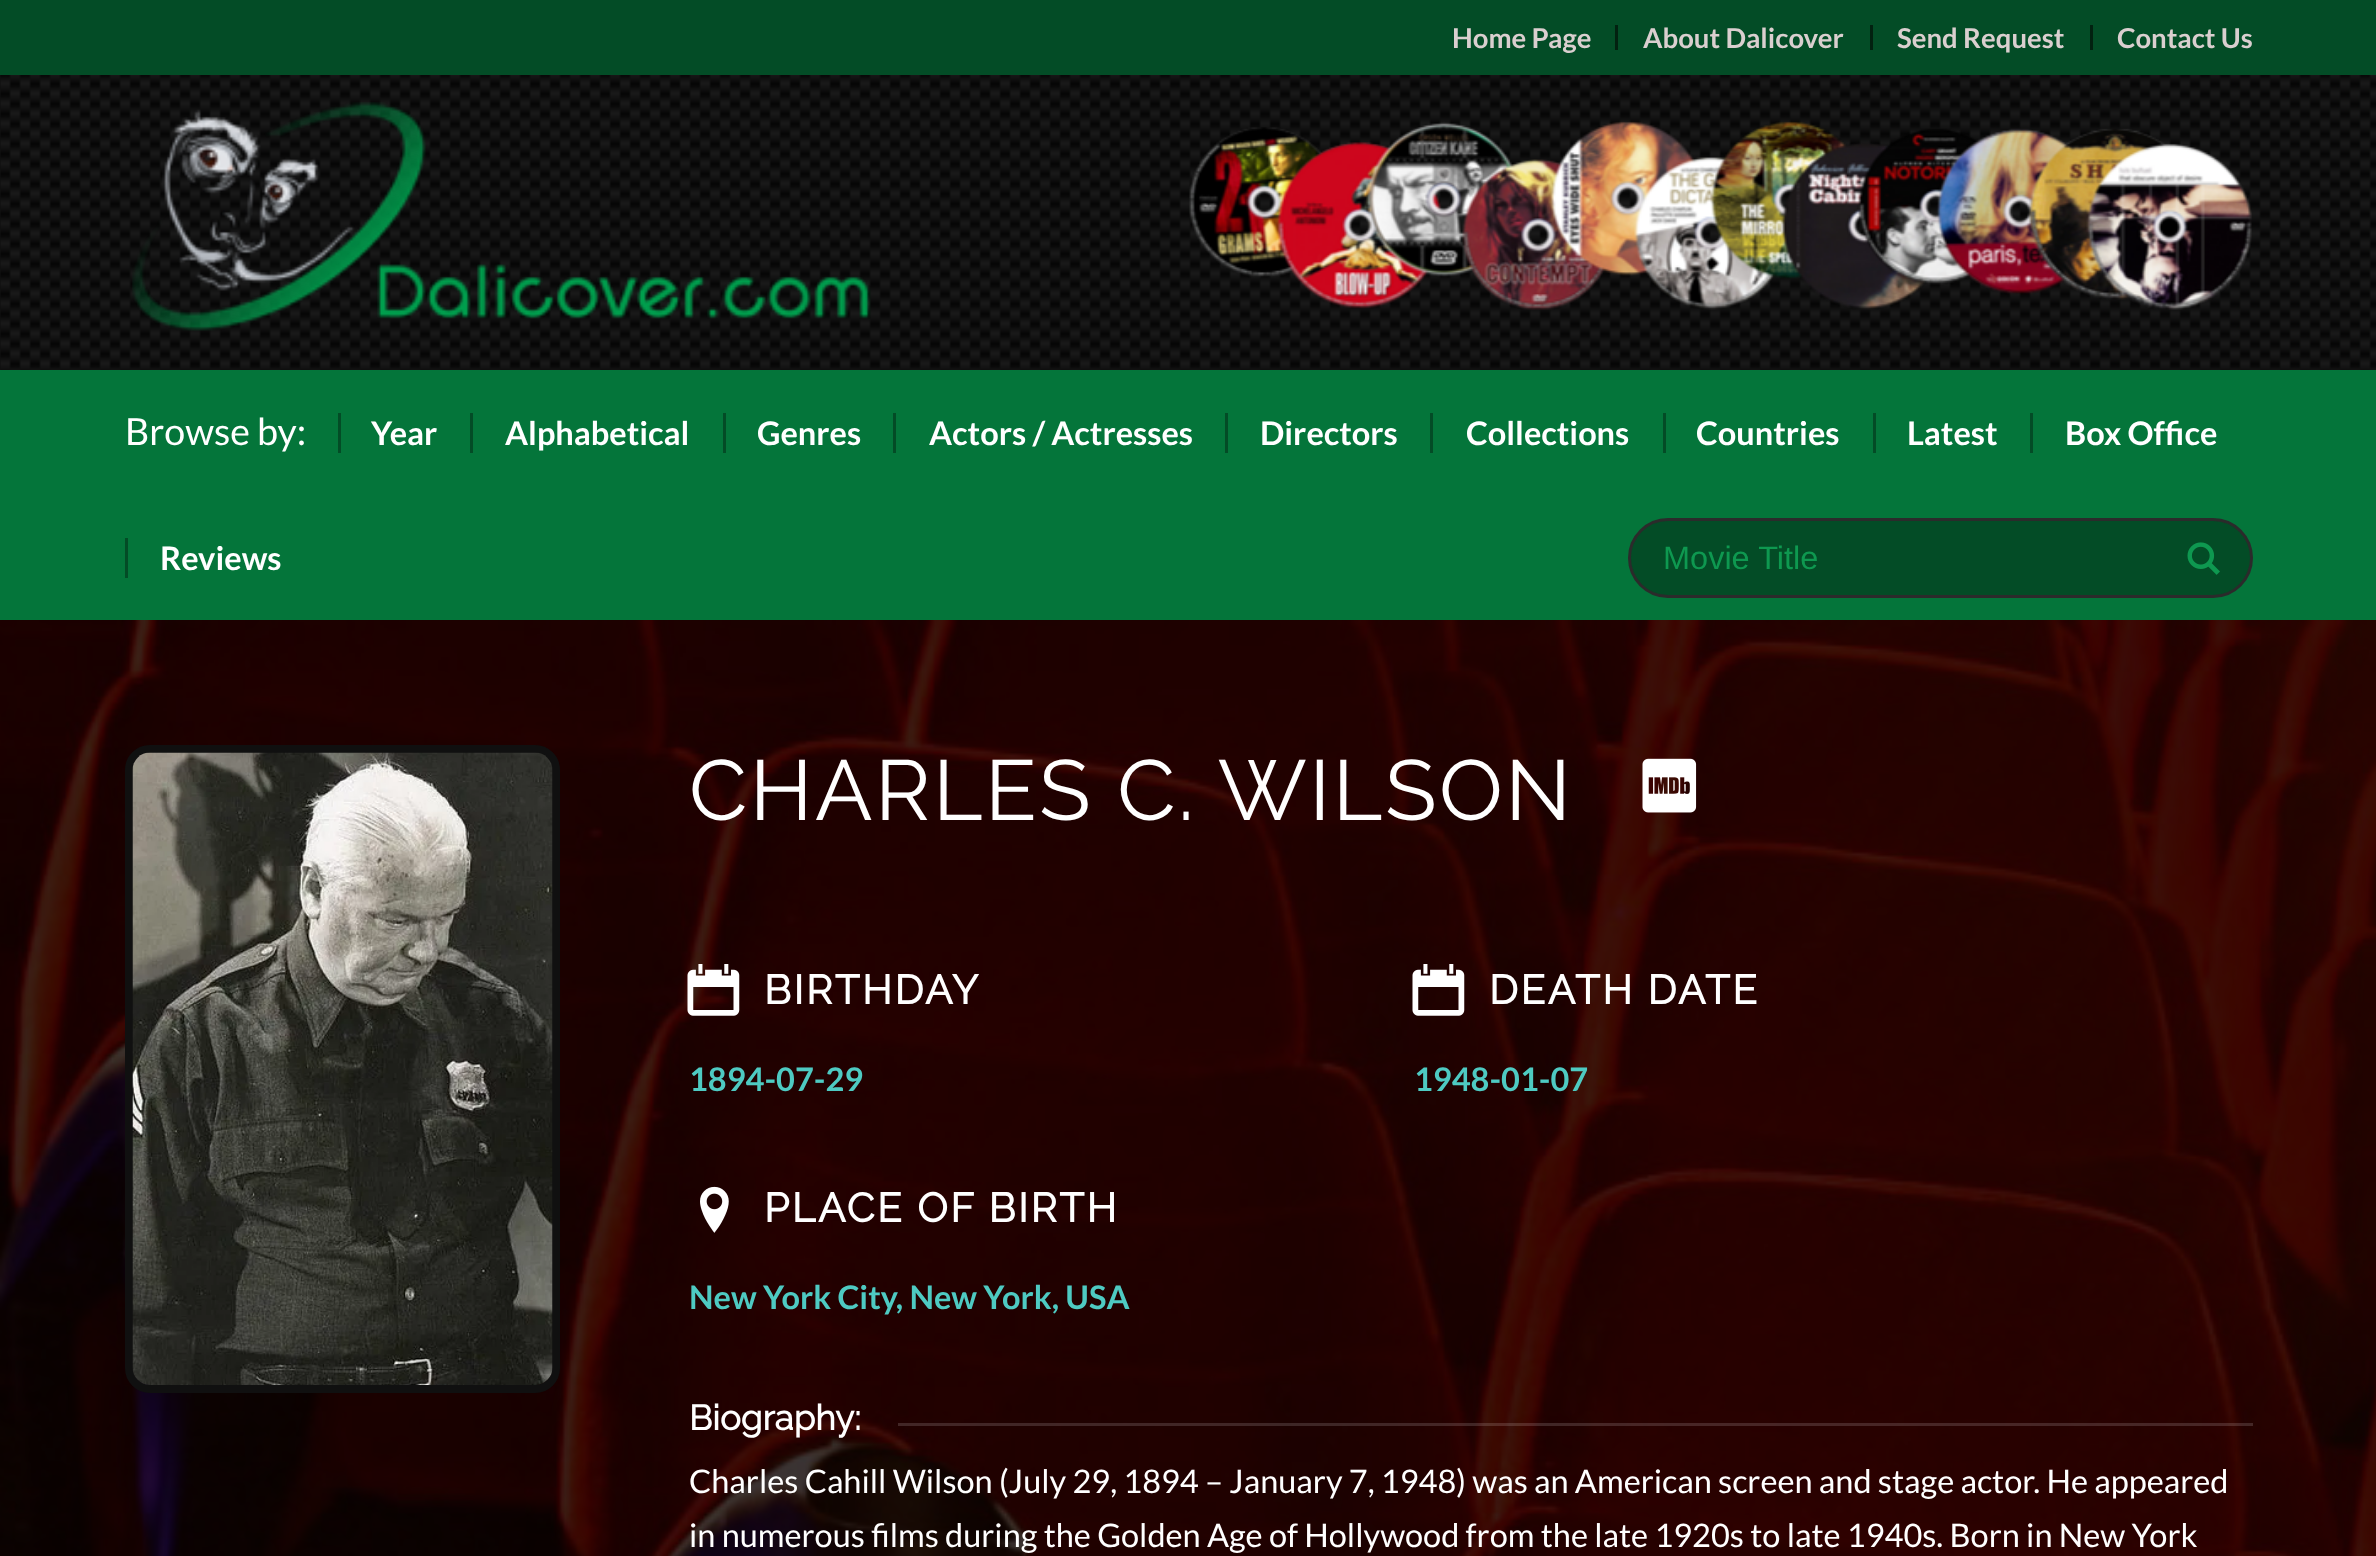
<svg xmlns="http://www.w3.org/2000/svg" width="2376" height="1556">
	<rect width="100%" height="100%" fill="#FFFFFF" />
	<rect x="0" y="0" width="2376" height="75" fill="#034C26" />
	<rect x="1615" y="25" width="3" height="25" fill="#022110" />
	<text x="1452" y="48" font-family="Lato" font-size="27.5" font-weight="700" fill="#DACFCF">Home Page</text>
	<rect x="1870" y="25" width="3" height="25" fill="#022110" />
	<text x="1643" y="48" font-family="Lato" font-size="27.5" font-weight="700" fill="#DACFCF">About Dalicover</text>
	<rect x="2090" y="25" width="3" height="25" fill="#022110" />
	<g font-family="Lato" font-size="27.5" font-weight="700" fill="#DACFCF">
		<text x="1897" y="48">Send Request</text>
		<text x="2117" y="48">Contact Us</text>
	</g>
	<image x="0" y="75" width="2376" height="295" href="assets/img1.png" />
	<image x="1189" y="121" width="1063" height="189" href="assets/img2.png" />
	<image x="132" y="102" width="739" height="229" href="assets/img3.png" />
	<rect x="0" y="370" width="2376" height="250" fill="#04753A" />
	<text x="125" y="445" font-family="Lato" font-size="37.5" fill="#FFFFFF">Browse by:</text>
	<text x="371" y="445" font-family="Lato" font-size="32.5" font-weight="700" fill="#FFFFFF">Year</text>
	<rect x="338" y="413" width="3" height="40" fill="#034C26" />
	<text x="505" y="445" font-family="Lato" font-size="32.5" font-weight="700" fill="#FFFFFF">Alphabetical</text>
	<rect x="470" y="413" width="3" height="40" fill="#034C26" />
	<text x="757" y="445" font-family="Lato" font-size="32.5" font-weight="700" fill="#FFFFFF">Genres</text>
	<rect x="723" y="413" width="3" height="40" fill="#034C26" />
	<text x="929" y="445" font-family="Lato" font-size="32.5" font-weight="700" fill="#FFFFFF">Actors / Actresses</text>
	<rect x="893" y="413" width="3" height="40" fill="#034C26" />
	<text x="1260" y="445" font-family="Lato" font-size="32.5" font-weight="700" fill="#FFFFFF">Directors</text>
	<rect x="1225" y="413" width="3" height="40" fill="#034C26" />
	<text x="1466" y="445" font-family="Lato" font-size="32.5" font-weight="700" fill="#FFFFFF">Collections</text>
	<rect x="1430" y="413" width="3" height="40" fill="#034C26" />
	<text x="1696" y="445" font-family="Lato" font-size="32.5" font-weight="700" fill="#FFFFFF">Countries</text>
	<rect x="1663" y="413" width="3" height="40" fill="#034C26" />
	<text x="1907" y="445" font-family="Lato" font-size="32.5" font-weight="700" fill="#FFFFFF">Latest</text>
	<rect x="1873" y="413" width="3" height="40" fill="#034C26" />
	<text x="2065" y="445" font-family="Lato" font-size="32.5" font-weight="700" fill="#FFFFFF">Box Office</text>
	<rect x="2030" y="413" width="3" height="40" fill="#034C26" />
	<text x="160" y="570" font-family="Lato" font-size="32.5" font-weight="700" fill="#FFFFFF">Reviews</text>
	<rect x="125" y="538" width="3" height="40" fill="#034C26" />
	<rect x="1629.5" y="519.5" width="622" height="77" rx="38.5" fill="#034C26" stroke="#2B2B2B" stroke-width="3" />
	<text x="1663" y="569" font-family="Liberation Sans" font-size="32.5" fill="#0E9850">Movie Title</text>
	<image x="2187" y="542" width="33" height="33" href="assets/img4.png" />
	<image x="0" y="620" width="2376" height="936" href="assets/img5.png" />
	<rect x="129" y="749" width="427" height="640" rx="21" fill="none" stroke="#101010" stroke-width="8" />
	<image x="132" y="752" width="421" height="633" href="assets/img6.png" />
	<text x="689" y="820" font-family="Raleway" font-size="85" font-weight="100" letter-spacing="2.5" fill="#FFFFFF">CHARLES C. WILSON</text>
	<image x="1642" y="758" width="55" height="55" href="assets/img7.png" />
	<image x="687" y="964" width="53" height="52" href="assets/img8.png" />
	<text x="764" y="1004" font-family="Raleway" font-size="40.6" font-weight="700" letter-spacing="2.5" fill="#FFFFFF">BIRTHDAY</text>
	<text x="689" y="1091" font-family="Lato" font-size="32.5" font-weight="700" fill="#4ECAC2">1894-07-29</text>
	<image x="1412" y="964" width="53" height="52" href="assets/img9.png" />
	<text x="1489" y="1004" font-family="Raleway" font-size="40.6" font-weight="700" letter-spacing="2.5" fill="#FFFFFF">DEATH DATE</text>
	<text x="1414" y="1091" font-family="Lato" font-size="32.5" font-weight="700" fill="#4ECAC2">1948-01-07</text>
	<image x="700" y="1186" width="29" height="47" href="assets/img10.png" />
	<text x="764" y="1222" font-family="Raleway" font-size="40.6" font-weight="700" letter-spacing="2.5" fill="#FFFFFF">PLACE OF BIRTH</text>
	<text x="689" y="1309" font-family="Lato" font-size="32.5" font-weight="700" fill="#4ECAC2">New York City, New York, USA</text>
	<text x="689" y="1430" font-family="Raleway" font-size="35" font-weight="700" fill="#FFFFFF">Biography:</text>
	<rect x="898" y="1423" width="1355" height="3" fill="#FFFFFF" fill-opacity="0.15" />
	<g font-family="Lato" font-size="32.5" fill="#FFFFFF">
		<text x="689" y="1493">Charles Cahill Wilson (July 29, 1894 – January 7, 1948) was an American screen and stage actor. He appeared</text>
		<text x="689" y="1547">in numerous films during the Golden Age of Hollywood from the late 1920s to late 1940s. Born in New York</text>
	</g>
</svg>
